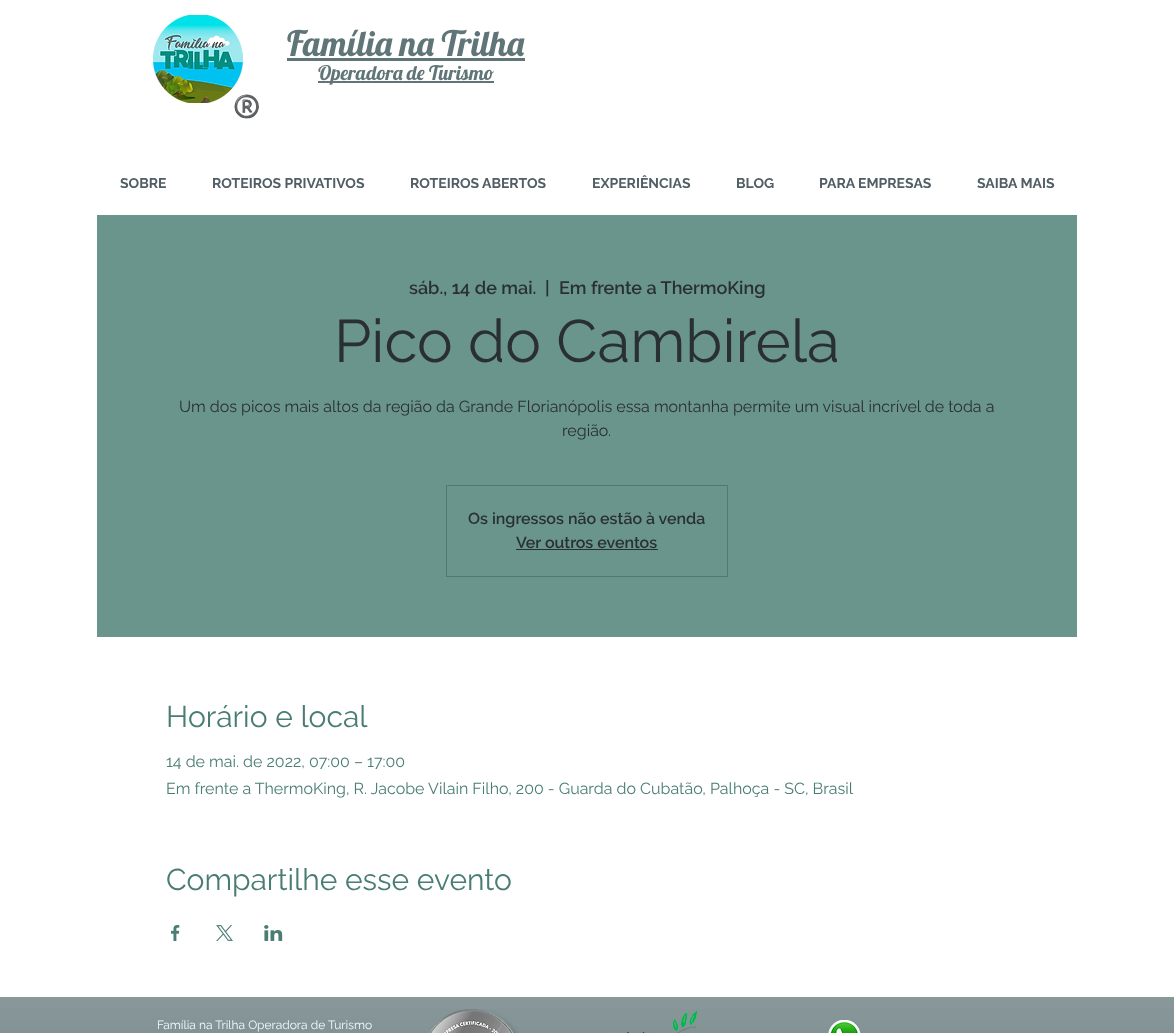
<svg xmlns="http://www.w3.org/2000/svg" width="1174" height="1033">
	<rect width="100%" height="100%" fill="#FFFFFF" />
	<text x="233" y="114" font-family="Noto Color Emoji" font-size="22" fill="#515E65">®️</text>
	<image x="153" y="15" width="90" height="88" href="assets/img1.png" />
	<text x="287" y="56" font-family="Lobster" font-size="35" fill="#607577">Família na Trilha</text>
	<rect x="287" y="58" width="238" height="3" fill="#607577" />
	<rect x="318" y="81" width="176" height="2" fill="#607577" />
	<text x="318" y="80" font-family="Lobster" font-size="20" fill="#607577">Operadora de Turismo</text>
	<g font-family="Raleway" font-size="14" font-weight="700" fill="#515E65">
		<text x="120" y="188">SOBRE</text>
		<text x="212" y="188">ROTEIROS PRIVATIVOS</text>
		<text x="410" y="188">ROTEIROS ABERTOS</text>
		<text x="592" y="188">EXPERIÊNCIAS</text>
		<text x="736" y="188">BLOG</text>
		<text x="819" y="188">PARA EMPRESAS</text>
		<text x="977" y="188">SAIBA MAIS</text>
	</g>
	<rect x="97" y="215" width="980" height="422" fill="#6A958C" />
	<g font-family="Raleway" font-size="18" font-weight="600" fill="#292F33">
		<text x="409" y="294">sáb., 14 de mai.</text>
		<text x="545" y="294">|</text>
		<text x="559" y="294">Em frente a ThermoKing</text>
	</g>
	<text x="334" y="362" font-family="Raleway" font-size="60" fill="#292F33">Pico do Cambirela</text>
	<g font-family="Raleway" font-size="16" fill="#292F33">
		<text x="179" y="412">Um dos picos mais altos da região da Grande Florianópolis essa montanha permite um visual incrível de toda a</text>
		<text x="562" y="436">região.</text>
	</g>
	<rect x="446.5" y="485.5" width="281" height="91" fill="none" stroke="#497D73" />
	<g font-family="Raleway" font-size="16" font-weight="600" fill="#292F33">
		<text x="468" y="524">Os ingressos não estão à venda</text>
		<text x="516" y="548">Ver outros eventos</text>
	</g>
	<rect x="516" y="549" width="142" height="1" fill="#292F33" />
	<text x="166" y="727" font-family="Raleway" font-size="30" fill="#497D73">Horário e local</text>
	<g font-family="Raleway" font-size="16" fill="#497D73">
		<text x="166" y="767">14 de mai. de 2022, 07:00 – 17:00</text>
		<text x="166" y="794">Em frente a ThermoKing, R. Jacobe Vilain Filho, 200 - Guarda do Cubatão, Palhoça - SC, Brasil</text>
	</g>
	<text x="166" y="890" font-family="Raleway" font-size="30" fill="#497D73">Compartilhe esse evento</text>
	<image x="171" y="925" width="9" height="16" href="assets/img2.png" />
	<image x="216" y="925" width="17" height="16" href="assets/img3.png" />
	<image x="264" y="925" width="19" height="16" href="assets/img4.png" />
	<rect x="0" y="997" width="1174" height="36" fill="#607577" />
	<image x="0" y="997" width="1174" height="36" href="assets/img5.png" />
	<text x="157" y="1029" font-family="Raleway" font-size="12" fill="#F0FAFF">Família na Trilha Operadora de Turismo</text>
	<image x="429" y="1009" width="90" height="24" href="assets/img6.png" />
	<image x="614" y="1010" width="84" height="23" href="assets/img7.png" />
	<image x="828" y="1020" width="33" height="13" href="assets/img8.png" />
</svg>
